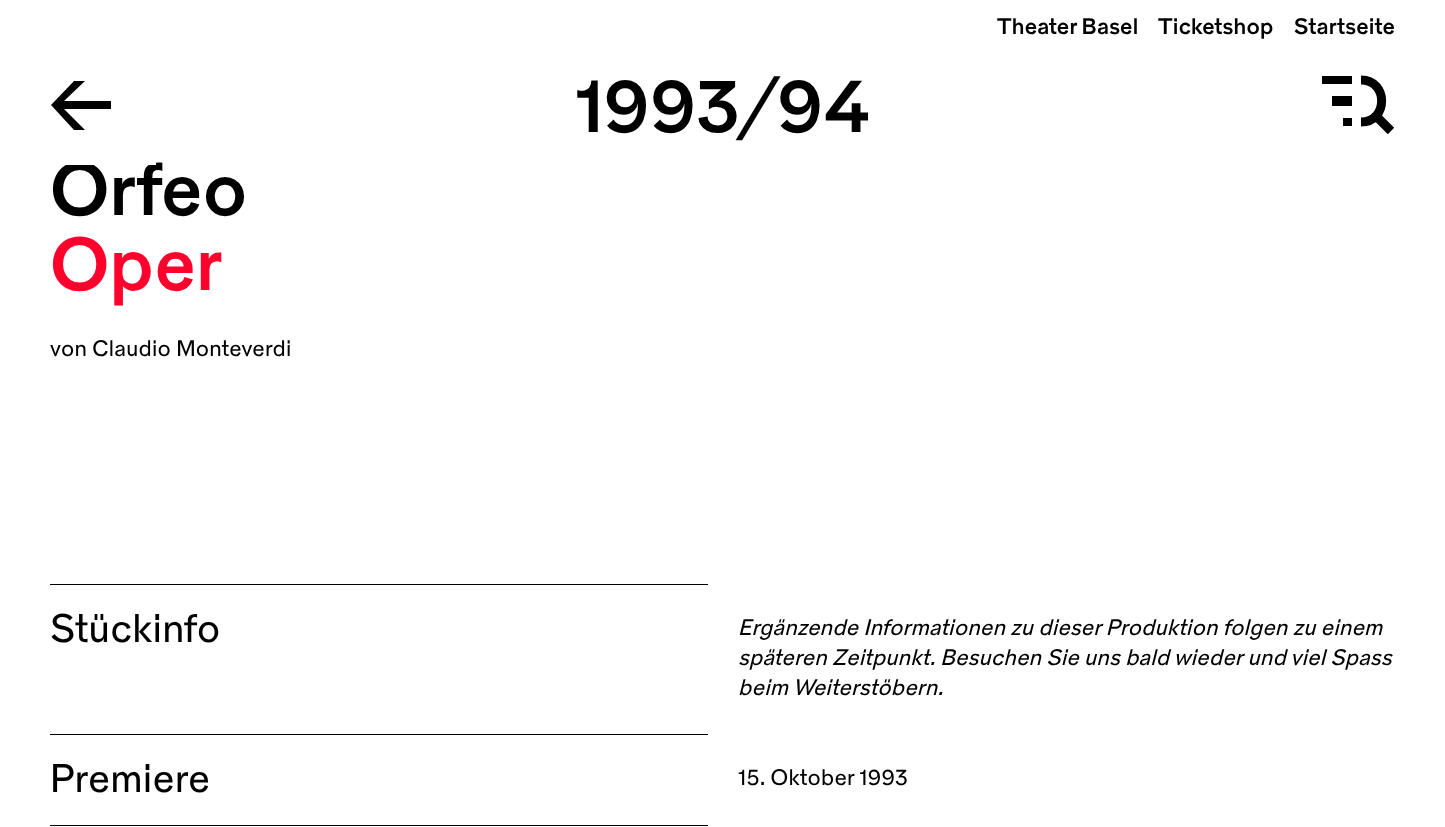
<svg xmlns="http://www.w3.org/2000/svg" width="1445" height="827">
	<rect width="100%" height="100%" fill="#FFFFFF" />
	<text x="50" y="215" font-family="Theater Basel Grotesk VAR" font-size="75" font-weight="600" letter-spacing="0.25" fill="#000000">Orfeo</text>
	<rect x="65" y="161" width="91" height="4" fill="#FFFFFF" />
	<g font-family="Theater Basel Grotesk VAR" font-size="22.5" font-weight="600" letter-spacing="0.25" fill="#000000">
		<text x="997" y="34">Theater Basel</text>
		<text x="1158" y="34">Ticketshop</text>
		<text x="1294" y="34">Startseite</text>
	</g>
	<path d="M51 105L74 81H85L64 101H111V109H64L85 130H74Z" fill="#000000" />
	<text x="575" y="132" font-family="Theater Basel Grotesk VAR" font-size="75" font-weight="600" fill="#000000">1993/94</text>
	<path d="M1322 76H1352V84H1322ZM1343 118H1352V126H1343ZM1332 96H1352V106H1332Z" fill="#000000" />
	<path d="M1361 80C1388.5 80 1388.5 122 1361 122M1373 113L1391 131" fill="none" stroke="#000000" stroke-width="9" />
	<text x="50" y="290" font-family="Theater Basel Grotesk VAR" font-size="75" font-weight="600" letter-spacing="0.25" fill="#FF002D">Oper</text>
	<text x="50" y="356" font-family="Theater Basel Grotesk VAR" font-size="22.5" letter-spacing="0.25" fill="#000000">von Claudio Monteverdi</text>
	<rect x="50" y="584" width="658" height="1" fill="#000000" />
	<text x="50" y="642" font-family="Theater Basel Grotesk VAR" font-size="40" letter-spacing="0.25" fill="#000000">Stückinfo</text>
	<g font-family="Theater Basel Grotesk VAR" font-size="22.5" font-style="italic" letter-spacing="0.25" fill="#000000">
		<text x="738" y="635">Ergänzende Informationen zu dieser Produktion folgen zu einem</text>
		<text x="738" y="665">späteren Zeitpunkt. Besuchen Sie uns bald wieder und viel Spass</text>
		<text x="738" y="695">beim Weiterstöbern.</text>
	</g>
	<rect x="50" y="734" width="658" height="1" fill="#000000" />
	<text x="50" y="792" font-family="Theater Basel Grotesk VAR" font-size="40" letter-spacing="0.25" fill="#000000">Premiere</text>
	<text x="738" y="785" font-family="Theater Basel Grotesk VAR" font-size="22.5" letter-spacing="0.25" fill="#000000">15. Oktober 1993</text>
	<rect x="50" y="825" width="658" height="1" fill="#000000" />
</svg>
